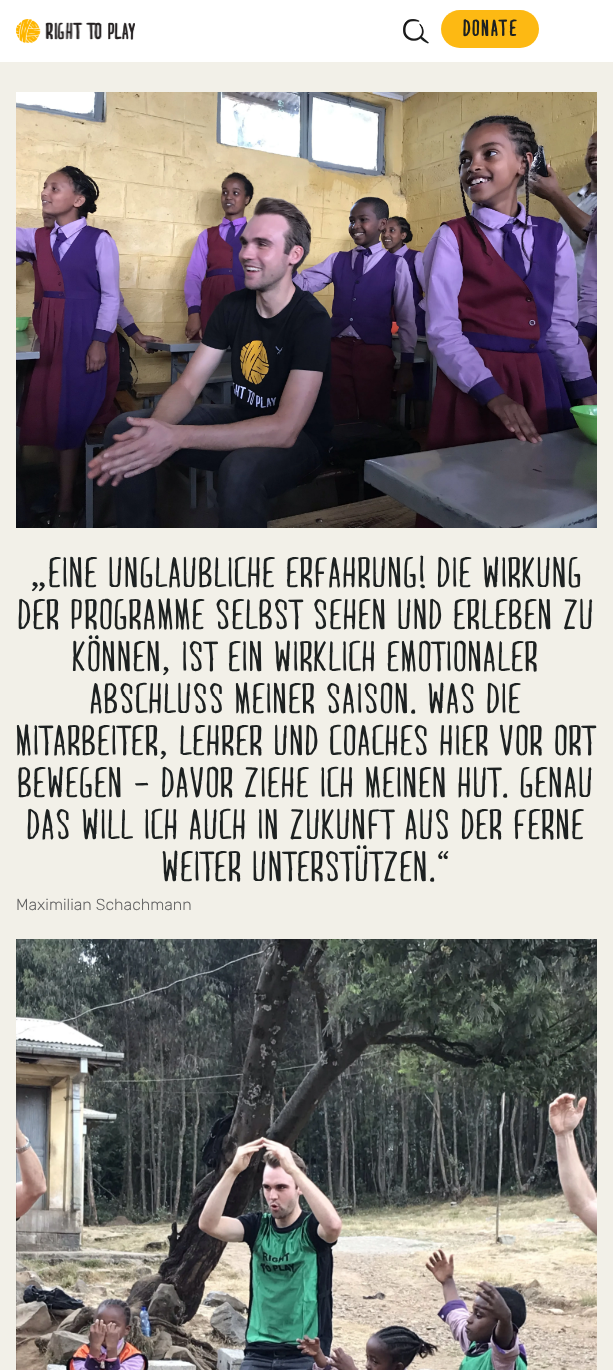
<svg xmlns="http://www.w3.org/2000/svg" width="613" height="1370">
	<rect width="100%" height="100%" fill="#F2F0E8" />
	<rect x="0" y="0" width="613" height="62" fill="#FFFFFF" />
	<image x="16" y="19" width="119" height="24" href="assets/img1.png" />
	<image x="403" y="19" width="26" height="25" href="assets/img2.png" />
	<rect x="441" y="10" width="98" height="38" rx="19" fill="#FDB913" />
	<text x="463" y="36" font-family="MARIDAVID" font-size="22" font-weight="700" letter-spacing="2" fill="#1D2121">DONATE</text>
	<image x="16" y="92" width="581" height="436" href="assets/img3.png" />
	<g font-family="MARIDAVID" font-size="40" letter-spacing="2" fill="#1D2121">
		<text x="30" y="587">„EINE UNGLAUBLICHE ERFAHRUNG! DIE WIRKUNG</text>
		<text x="18" y="629">DER PROGRAMME SELBST SEHEN UND ERLEBEN ZU</text>
		<text x="73" y="671">KÖNNEN, IST EIN WIRKLICH EMOTIONALER</text>
		<text x="90" y="713">ABSCHLUSS MEINER SAISON. WAS DIE</text>
		<text x="16" y="755">MITARBEITER, LEHRER UND COACHES HIER VOR ORT</text>
		<text x="18" y="797">BEWEGEN – DAVOR ZIEHE ICH MEINEN HUT. GENAU</text>
		<text x="27" y="839">DAS WILL ICH AUCH IN ZUKUNFT AUS DER FERNE</text>
		<text x="162" y="881">WEITER UNTERSTÜTZEN.“</text>
	</g>
	<text x="16" y="910" font-family="Rubik" font-size="16" font-weight="300" fill="#636363">Maximilian Schachmann</text>
	<image x="16" y="939" width="581" height="431" href="assets/img4.png" />
</svg>
